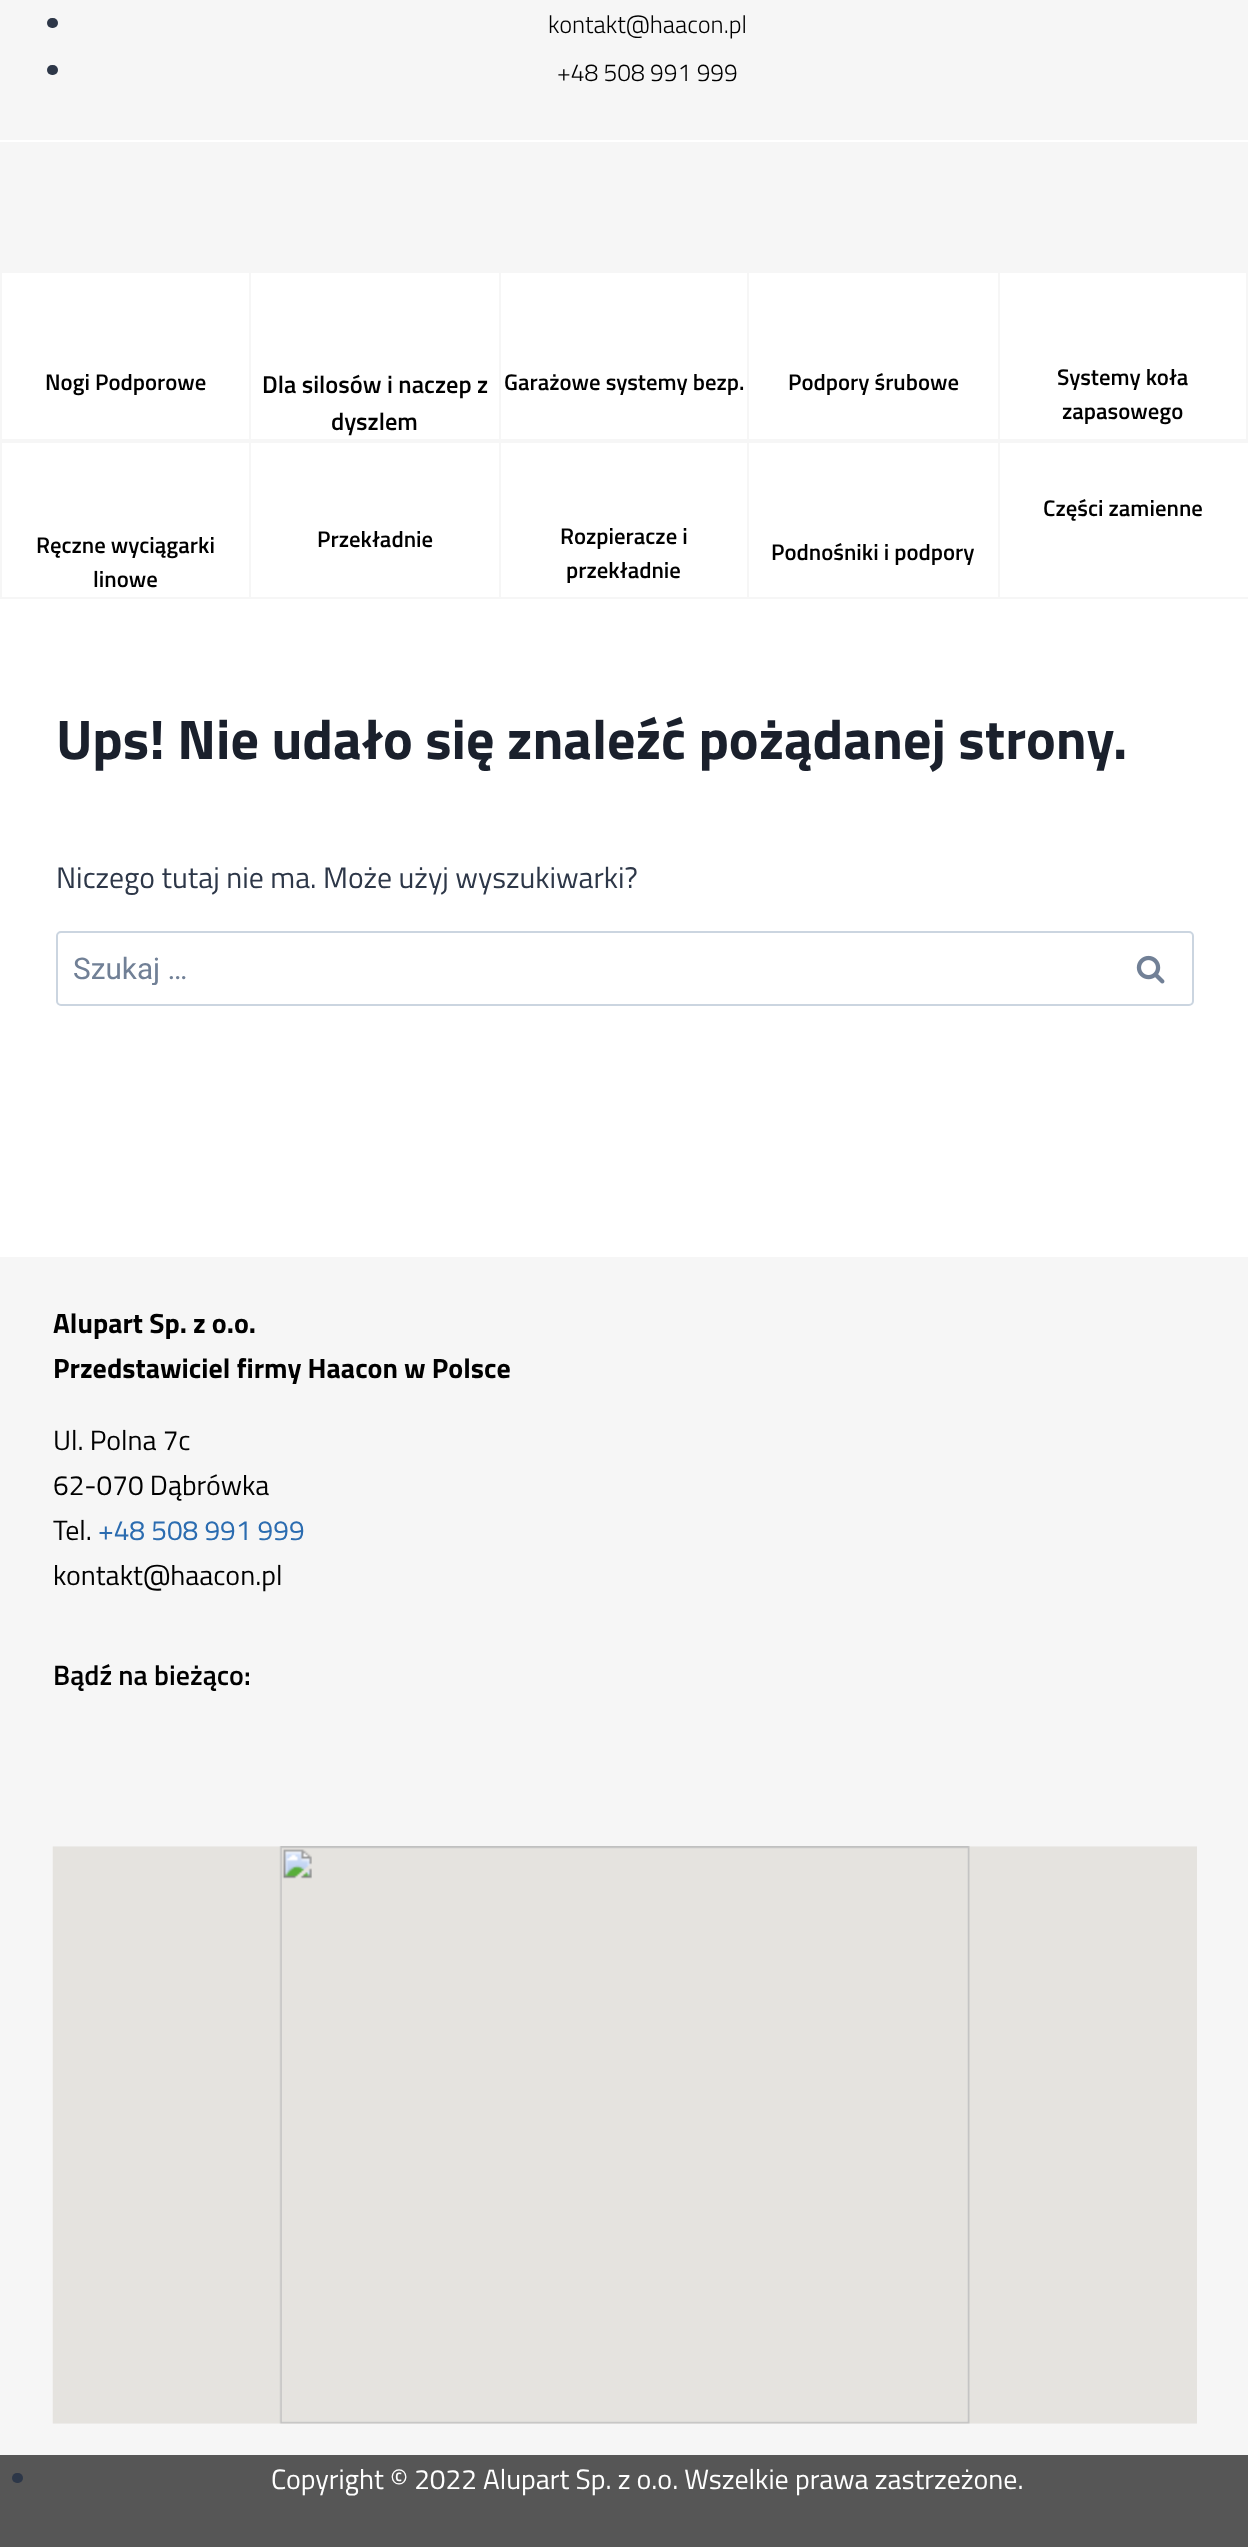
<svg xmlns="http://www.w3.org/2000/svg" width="1248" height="2547">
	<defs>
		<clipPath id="clip1"><rect x="74" y="950" width="985" height="35" /></clipPath>
	</defs>
	<rect width="100%" height="100%" fill="#FFFFFF" />
	<rect x="0" y="0" width="1248" height="140" fill="#F6F6F6" />
	<rect x="47" y="18" width="11" height="10" rx="5" fill="#2D3748" />
	<text x="548" y="33" font-family="Titillium Web" font-size="24.5" font-weight="300" fill="#000000">kontakt@haacon.pl</text>
	<rect x="47" y="65" width="11" height="10" rx="5" fill="#2D3748" />
	<text x="557" y="81" font-family="Titillium Web" font-size="24.5" font-weight="300" fill="#000000">+48 508 991 999</text>
	<rect x="0" y="142" width="1248" height="129" fill="#F6F6F6" />
	<rect x="1" y="272" width="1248" height="168" fill="none" stroke="#F6F6F6" stroke-width="2" />
	<rect x="249" y="273" width="2" height="166" fill="#F6F6F6" />
	<text x="45" y="390" font-family="Titillium Web" font-size="22.75" font-weight="600" fill="#000000">Nogi Podporowe</text>
	<rect x="499" y="273" width="2" height="166" fill="#F6F6F6" />
	<g font-family="Titillium Web" font-size="24.5" font-weight="600" fill="#000000">
		<text x="262" y="393">Dla silosów i naczep z</text>
		<text x="331" y="430">dyszlem</text>
	</g>
	<rect x="747" y="273" width="2" height="166" fill="#F6F6F6" />
	<text x="504" y="390" font-family="Titillium Web" font-size="22.75" font-weight="600" fill="#000000">Garażowe systemy bezp.</text>
	<rect x="998" y="273" width="2" height="166" fill="#F6F6F6" />
	<text x="788" y="390" font-family="Titillium Web" font-size="22.75" font-weight="600" fill="#000000">Podpory śrubowe</text>
	<rect x="1246" y="273" width="2" height="166" fill="#F6F6F6" />
	<g font-family="Titillium Web" font-size="22.75" font-weight="600" fill="#000000">
		<text x="1057" y="385">Systemy koła</text>
		<text x="1062" y="419">zapasowego</text>
	</g>
	<rect x="1" y="442" width="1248" height="156" fill="none" stroke="#F6F6F6" stroke-width="2" />
	<text x="1043" y="516" font-family="Titillium Web" font-size="22.75" font-weight="600" fill="#000000">Części zamienne</text>
	<rect x="249" y="443" width="2" height="154" fill="#F6F6F6" />
	<g font-family="Titillium Web" font-size="22.75" font-weight="600" fill="#000000">
		<text x="36" y="553">Ręczne wyciągarki</text>
		<text x="93" y="587">linowe</text>
	</g>
	<rect x="499" y="443" width="2" height="154" fill="#F6F6F6" />
	<text x="317" y="547" font-family="Titillium Web" font-size="22.75" font-weight="600" fill="#000000">Przekładnie</text>
	<rect x="747" y="443" width="2" height="154" fill="#F6F6F6" />
	<g font-family="Titillium Web" font-size="22.75" font-weight="600" fill="#000000">
		<text x="560" y="544">Rozpieracze i</text>
		<text x="566" y="578">przekładnie</text>
	</g>
	<rect x="998" y="443" width="2" height="154" fill="#F6F6F6" />
	<text x="771" y="560" font-family="Titillium Web" font-size="22.75" font-weight="600" fill="#000000">Podnośniki i podpory</text>
	<text x="56" y="759" font-family="Titillium Web" font-size="56" font-weight="700" fill="#1A202C">Ups! Nie udało się znaleźć pożądanej strony.</text>
	<text x="56" y="888" font-family="Titillium Web" font-size="29.75" fill="#2D3748">Niczego tutaj nie ma. Może użyj wyszukiwarki?</text>
	<rect x="57" y="932" width="1136" height="73" rx="4" fill="none" stroke="#CBD5E0" stroke-width="2" />
	<g clip-path="url(#clip1)">
		<text x="73" y="979" font-family="Roboto" font-size="29.75" fill="#718096">Szukaj …</text>
	</g>
	<image x="1136" y="955" width="29" height="29" href="assets/img1.png" />
	<rect x="0" y="1257" width="1248" height="1198" fill="#F6F6F6" />
	<g font-family="Titillium Web" font-size="28" font-weight="700" fill="#000000">
		<text x="53" y="1333">Alupart Sp. z o.o.</text>
		<text x="53" y="1378">Przedstawiciel firmy Haacon w Polsce</text>
	</g>
	<g font-family="Titillium Web" font-size="28" fill="#000000">
		<text x="53" y="1450">Ul. Polna 7c</text>
		<text x="53" y="1495">62-070 Dąbrówka</text>
		<text x="53" y="1540">Tel.</text>
	</g>
	<text x="98" y="1540" font-family="Titillium Web" font-size="28" fill="#2B6CB0">+48 508 991 999</text>
	<text x="53" y="1585" font-family="Titillium Web" font-size="28" fill="#000000">kontakt@haacon.pl</text>
	<text x="53" y="1685" font-family="Titillium Web" font-size="28" font-weight="600" fill="#000000">Bądź na bieżąco:</text>
	<image x="52" y="1846" width="1145" height="578" href="assets/img2.png" />
	<rect x="0" y="2455" width="1248" height="92" fill="#565656" />
	<rect x="12" y="2473" width="11" height="10" rx="5" fill="#2D3748" />
	<text x="271" y="2489" font-family="Titillium Web" font-size="28" fill="#FFFFFF">Copyright © 2022 Alupart Sp. z o.o. Wszelkie prawa zastrzeżone.</text>
</svg>
